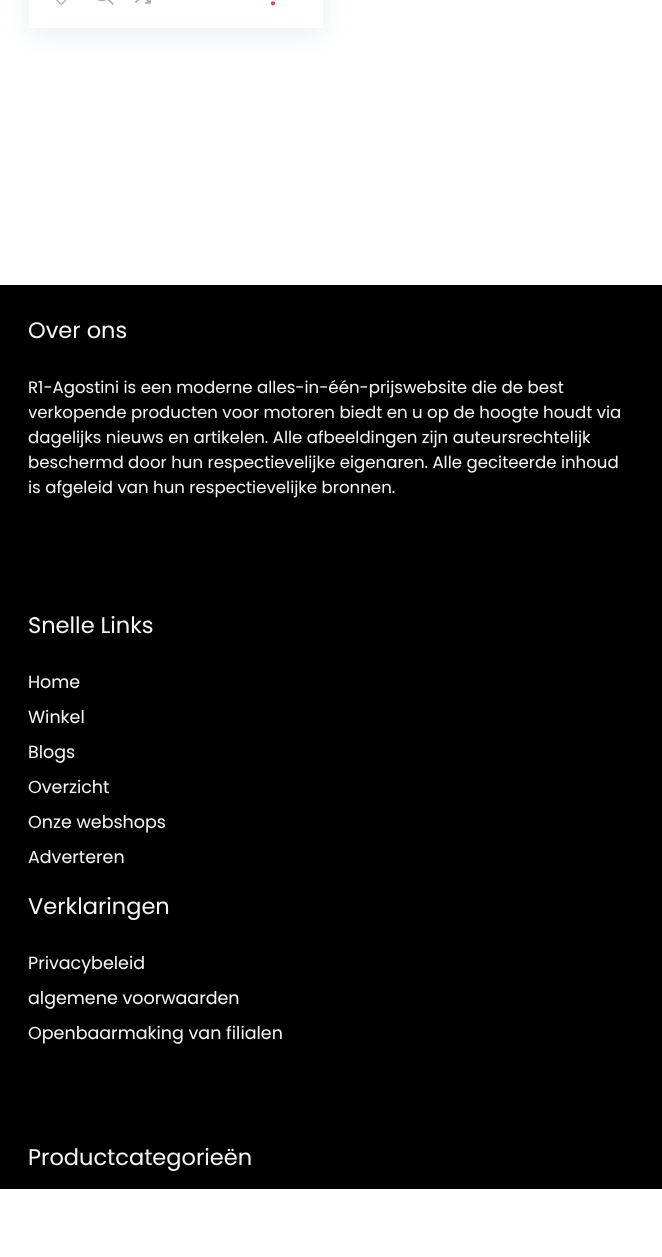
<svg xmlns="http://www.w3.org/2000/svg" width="662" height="1257">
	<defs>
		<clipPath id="clip1"><rect x="29" y="316" width="606" height="264" /></clipPath>
	</defs>
	<rect width="100%" height="100%" fill="#FFFFFF" />
	<rect x="29" y="-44" width="294" height="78" fill="#BCCFDB" fill-opacity="0.35" filter="blur(14.5px)" />
	<rect x="29" y="0" width="294" height="28" fill="#FFFFFF" />
	<image x="56" y="0" width="11" height="5" href="assets/img1.png" />
	<image x="98" y="0" width="16" height="5" href="assets/img2.png" />
	<image x="135" y="0" width="16" height="4" href="assets/img3.png" />
	<text x="270" y="5" font-family="Poppins" font-size="21" font-weight="700" fill="#F04057">.</text>
	<rect x="0" y="285" width="662" height="904" fill="#000000" />
	<text x="28" y="338" font-family="Poppins" font-size="22.5" fill="#F5F5F5">Over ons</text>
	<text x="28" y="393" font-family="Poppins" font-size="16.6" fill="#F5F5F5">R1-Agostini is een moderne alles-in-één-prijswebsite die de best</text>
	<g clip-path="url(#clip1)">
		<text x="28" y="418" font-family="Poppins" font-size="16.6" fill="#F5F5F5">verkopende producten voor motoren biedt en u op de hoogte houdt via</text>
	</g>
	<g font-family="Poppins" font-size="16.6" fill="#F5F5F5">
		<text x="28" y="443">dagelijks nieuws en artikelen. Alle afbeeldingen zijn auteursrechtelijk</text>
		<text x="28" y="468">beschermd door hun respectievelijke eigenaren. Alle geciteerde inhoud</text>
		<text x="28" y="493">is afgeleid van hun respectievelijke bronnen.</text>
	</g>
	<text x="28" y="633" font-family="Poppins" font-size="22.5" fill="#F5F5F5">Snelle Links</text>
	<g font-family="Poppins" font-size="17.5" fill="#F5F5F5">
		<text x="28" y="688">Home</text>
		<text x="28" y="723">Winkel</text>
		<text x="28" y="758">Blogs</text>
		<text x="28" y="793">Overzicht</text>
		<text x="28" y="828">Onze webshops</text>
		<text x="28" y="863">Adverteren</text>
	</g>
	<text x="28" y="914" font-family="Poppins" font-size="22.5" fill="#F5F5F5">Verklaringen</text>
	<g font-family="Poppins" font-size="17.5" fill="#F5F5F5">
		<text x="28" y="969">Privacybeleid</text>
		<text x="28" y="1004">algemene voorwaarden</text>
		<text x="28" y="1039">Openbaarmaking van filialen</text>
	</g>
	<text x="28" y="1165" font-family="Poppins" font-size="22.5" fill="#F5F5F5">Productcategorieën</text>
</svg>
